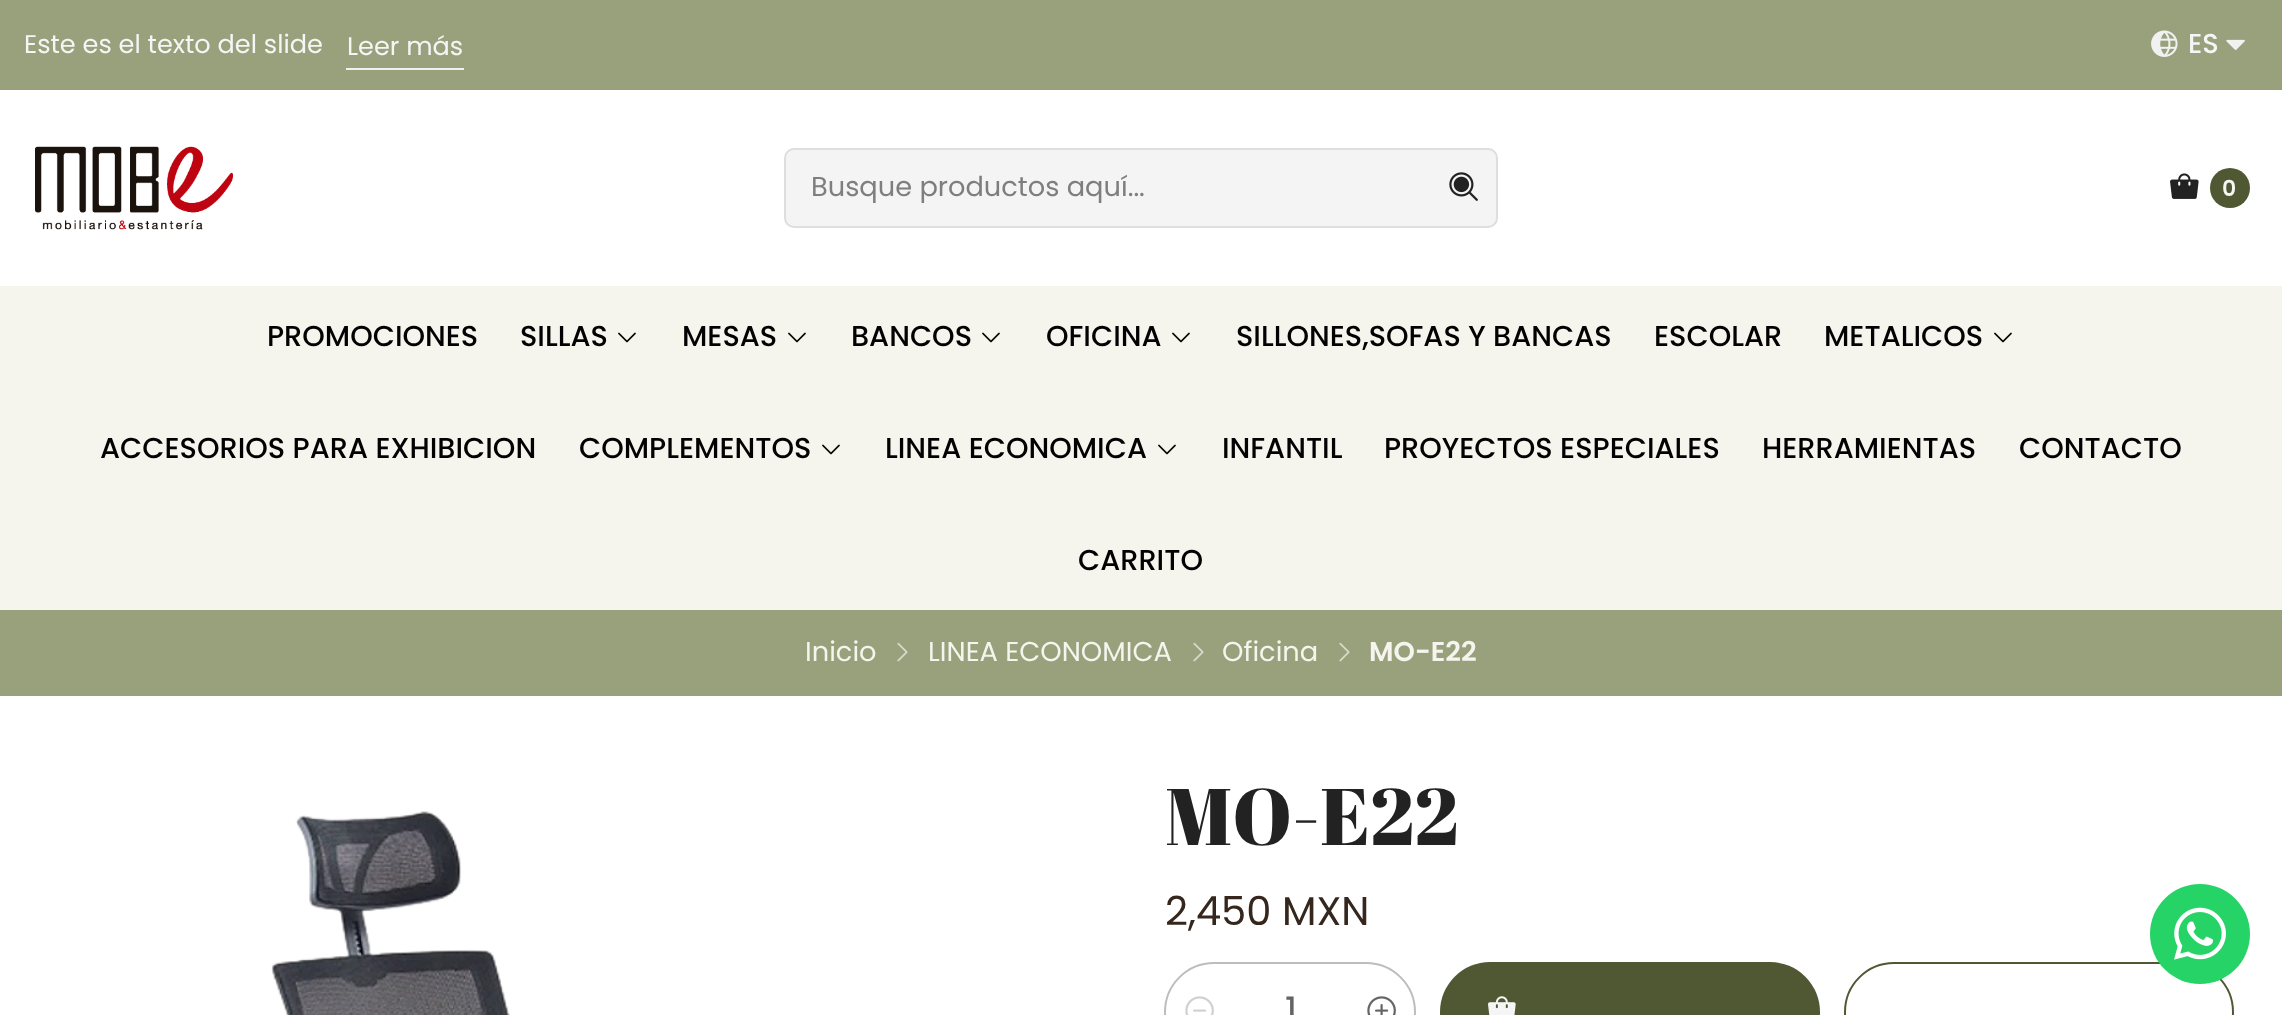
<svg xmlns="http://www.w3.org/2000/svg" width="2282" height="1015">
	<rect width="100%" height="100%" fill="#FFFFFF" />
	<rect x="0" y="0" width="2282" height="90" fill="#98A17C" />
	<text x="24" y="53" font-family="Poppins" font-size="25.6" fill="#F5F5F5">Este es el texto del slide</text>
	<rect x="346" y="68" width="118" height="2" fill="#F1F1F1" />
	<text x="347" y="55" font-family="Poppins" font-size="25.6" fill="#F5F5F5">Leer más</text>
	<image x="2151" y="30" width="27" height="27" href="assets/img1.png" />
	<text x="2188" y="53" font-family="Poppins" font-size="27.25" font-weight="500" fill="#F5F5F5">ES</text>
	<image x="2226" y="39" width="19" height="11" href="assets/img2.png" />
	<image x="35" y="146" width="198" height="84" href="assets/img3.png" />
	<rect x="784" y="148" width="714" height="80" rx="10" fill="#F4F4F4" />
	<rect x="785" y="149" width="712" height="78" rx="9" fill="none" stroke="#222222" stroke-opacity="0.1" stroke-width="2" />
	<text x="811" y="196" font-family="Poppins" font-size="27.25" fill="#7E7E7E">Busque productos aquí...</text>
	<image x="1449" y="172" width="29" height="29" href="assets/img4.png" />
	<image x="2170" y="173" width="29" height="26" href="assets/img5.png" />
	<circle cx="2230" cy="188" r="20" fill="#4F5832" />
	<text x="2222" y="196" font-family="Poppins" font-size="22" font-weight="600" fill="#F5F5F5">0</text>
	<rect x="0" y="286" width="2282" height="324" fill="#F5F4ED" />
	<g font-family="Poppins" font-size="28.75" font-weight="500" fill="#020202">
		<text x="267" y="346">PROMOCIONES</text>
		<text x="520" y="346">SILLAS</text>
	</g>
	<image x="618" y="332" width="18" height="11" href="assets/img6.png" />
	<text x="682" y="346" font-family="Poppins" font-size="28.75" font-weight="500" fill="#020202">MESAS</text>
	<image x="788" y="332" width="18" height="11" href="assets/img6.png" />
	<text x="851" y="346" font-family="Poppins" font-size="28.75" font-weight="500" fill="#020202">BANCOS</text>
	<image x="982" y="332" width="18" height="11" href="assets/img6.png" />
	<text x="1046" y="346" font-family="Poppins" font-size="28.75" font-weight="500" fill="#020202">OFICINA</text>
	<image x="1172" y="332" width="18" height="11" href="assets/img6.png" />
	<g font-family="Poppins" font-size="28.75" font-weight="500" fill="#020202">
		<text x="1236" y="346">SILLONES,SOFAS Y BANCAS</text>
		<text x="1654" y="346">ESCOLAR</text>
		<text x="1824" y="346">METALICOS</text>
	</g>
	<image x="1994" y="332" width="18" height="11" href="assets/img6.png" />
	<g font-family="Poppins" font-size="28.75" font-weight="500" fill="#020202">
		<text x="100" y="458">ACCESORIOS PARA EXHIBICION</text>
		<text x="579" y="458">COMPLEMENTOS</text>
	</g>
	<image x="822" y="444" width="18" height="11" href="assets/img6.png" />
	<text x="885" y="458" font-family="Poppins" font-size="28.75" font-weight="500" fill="#020202">LINEA ECONOMICA</text>
	<image x="1158" y="444" width="18" height="11" href="assets/img6.png" />
	<g font-family="Poppins" font-size="28.75" font-weight="500" fill="#020202">
		<text x="1222" y="458">INFANTIL</text>
		<text x="1384" y="458">PROYECTOS ESPECIALES</text>
		<text x="1762" y="458">HERRAMIENTAS</text>
		<text x="2019" y="458">CONTACTO</text>
		<text x="1078" y="570">CARRITO</text>
	</g>
	<rect x="0" y="610" width="2282" height="86" fill="#98A17C" />
	<text x="805" y="661" font-family="Poppins" font-size="27.25" fill="#F5F4ED">Inicio</text>
	<image x="897" y="642" width="11" height="20" href="assets/img7.png" />
	<text x="928" y="661" font-family="Poppins" font-size="27.25" fill="#F5F4ED">LINEA ECONOMICA</text>
	<image x="1193" y="642" width="11" height="20" href="assets/img7.png" />
	<text x="1222" y="661" font-family="Poppins" font-size="27.25" fill="#F5F4ED">Oficina</text>
	<image x="1339" y="642" width="11" height="20" href="assets/img7.png" />
	<text x="1369" y="661" font-family="Poppins" font-size="27.25" font-weight="600" fill="#F5F4ED">MO-E22</text>
	<image x="271" y="811" width="239" height="204" href="assets/img8.png" />
	<text x="1165" y="845" font-family="Abril Fatface" font-size="80" fill="#222222">MO-E22</text>
	<text x="1165" y="925" font-family="Poppins" font-size="40" fill="#35271D">2,450 MXN</text>
	<rect x="1165" y="963" width="250" height="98" rx="49" fill="none" stroke="#BDBDBD" stroke-width="2" />
	<image x="1185" y="996" width="29" height="19" href="assets/img9.png" />
	<text x="1285" y="1024" font-family="Poppins" font-size="38" fill="#646464">1</text>
	<image x="1367" y="996" width="29" height="19" href="assets/img10.png" />
	<rect x="1440" y="962" width="380" height="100" rx="50" fill="#4F5832" />
	<image x="1488" y="996" width="28" height="19" href="assets/img11.png" />
	<rect x="1845" y="963" width="388" height="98" rx="49" fill="none" stroke="#4F5832" stroke-width="2" />
	<circle cx="2200" cy="934" r="50" fill="#25D366" />
	<image x="2174" y="907" width="52" height="53" href="assets/img12.png" />
</svg>
